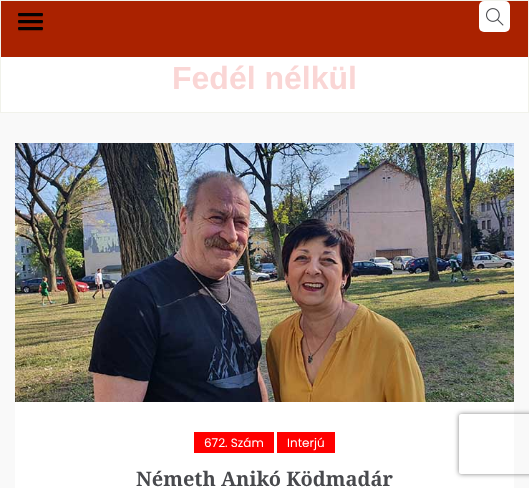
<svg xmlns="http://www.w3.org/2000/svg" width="529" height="488">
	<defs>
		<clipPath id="clip1"><path d="M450 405H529V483H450ZM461 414H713C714 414 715 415 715 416V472C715 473 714 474 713 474H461C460 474 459 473 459 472V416C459 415 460 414 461 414Z" clip-rule="evenodd" /></clipPath>
	</defs>
	<rect width="100%" height="100%" fill="#F9F9F9" />
	<rect x="1" y="57" width="527" height="55" fill="#FFFFFF" />
	<rect x="0.5" y="0.5" width="528" height="112" fill="none" stroke="#F1F2EB" />
	<rect x="1" y="1" width="527" height="56" fill="#AA2200" />
	<path d="M18 15C18 18 19.5 17 23 17H38C41.5 17 43 18 43 15C43 15.5 42.5 16 42 16H19C18.5 16 18 15.5 18 15Z" fill="#801A00" />
	<rect x="18" y="13" width="25" height="3" rx="1" fill="#040203" />
	<path d="M18 22C18 25 19.5 24 23 24H38C41.5 24 43 25 43 22C43 22.5 42.5 23 42 23H19C18.5 23 18 22.5 18 22Z" fill="#801A00" />
	<rect x="18" y="20" width="25" height="3" rx="1" fill="#040203" />
	<path d="M18 29C18 32 19.5 31 23 31H38C41.5 31 43 32 43 29C43 29.5 42.5 30 42 30H19C18.5 30 18 29.5 18 29Z" fill="#801A00" />
	<rect x="18" y="27" width="25" height="3" rx="1" fill="#040203" />
	<rect x="479" y="1" width="31" height="31" rx="5" fill="#FFFFFF" />
	<image x="486" y="8" width="18" height="18" href="assets/img1.png" />
	<text x="172" y="89" font-family="Liberation Sans" font-size="32" font-weight="700" fill="#FAD6D5">Fedél nélkül</text>
	<rect x="15" y="402" width="499" height="86" fill="#FFFFFF" />
	<image x="15" y="143" width="499" height="259" href="assets/img2.png" />
	<rect x="194" y="432" width="80" height="21" fill="#FF0000" />
	<text x="204" y="447" font-family="Poppins" font-size="12" fill="#FFFFFF">672. Szám</text>
	<rect x="277" y="432" width="58" height="21" fill="#FF0000" />
	<text x="287" y="447" font-family="Poppins" font-size="12" fill="#FFFFFF">Interjú</text>
	<text x="136" y="486" font-family="Noto Serif" font-size="20" font-weight="700" fill="#48494D">Németh Anikó Ködmadár</text>
	<g clip-path="url(#clip1)">
		<rect x="459" y="414" width="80" height="60" rx="2" fill="#808080" filter="blur(2.5px)" />
	</g>
</svg>
